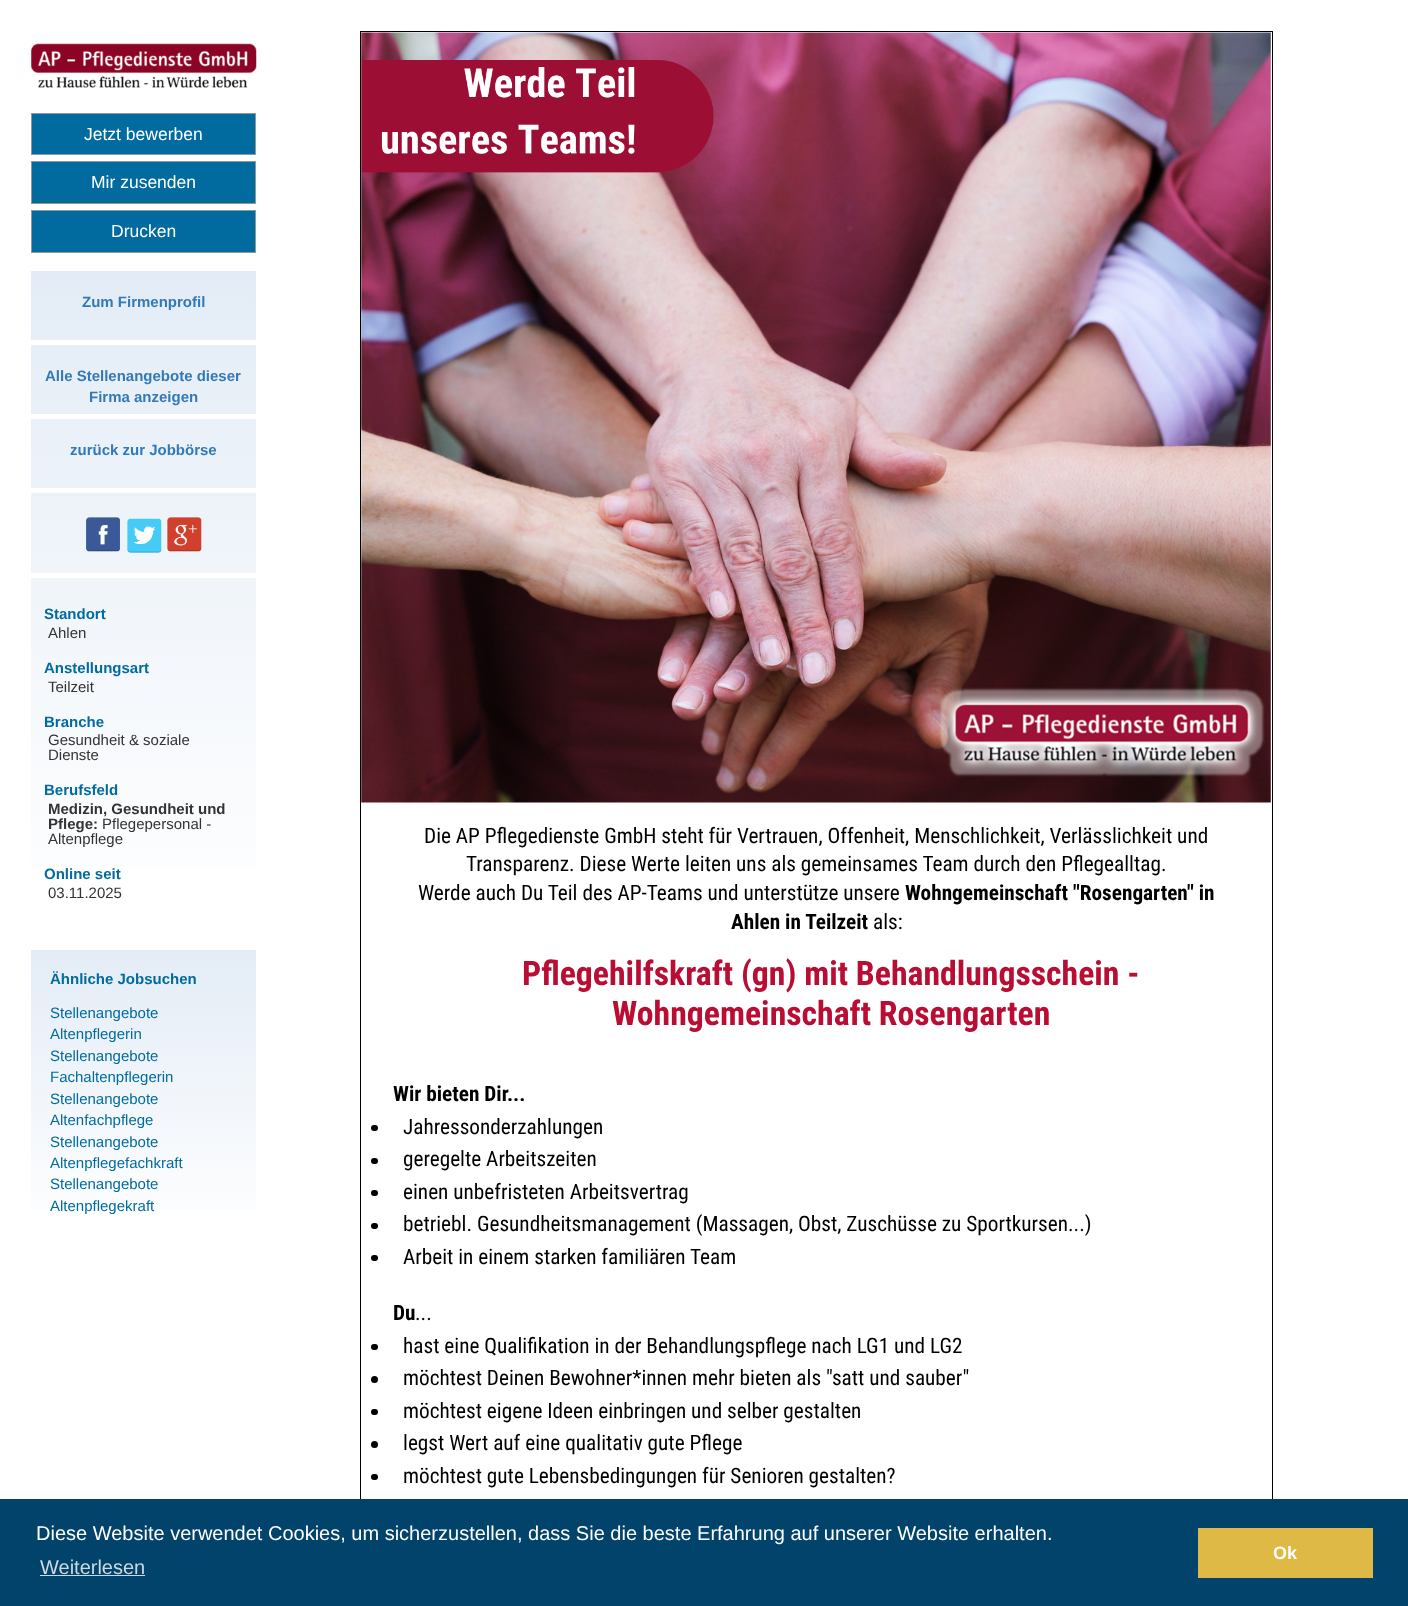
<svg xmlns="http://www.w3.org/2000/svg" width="1408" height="1606">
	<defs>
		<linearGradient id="g1" gradientUnits="userSpaceOnUse" x1="144" y1="271" x2="144" y2="925"><stop offset="0" stop-color="#E3ECF6" /><stop offset="1" stop-color="#FFFFFF" /></linearGradient>
		<linearGradient id="g2" gradientUnits="userSpaceOnUse" x1="144" y1="950" x2="144" y2="1236"><stop offset="0" stop-color="#E3ECF6" /><stop offset="1" stop-color="#FFFFFF" /></linearGradient>
	</defs>
	<rect width="100%" height="100%" fill="#FFFFFF" />
	<image x="31" y="43" width="226" height="45" href="assets/img1.png" />
	<rect x="31.5" y="113.5" width="224" height="41" fill="#016B9F" stroke="#949599" />
	<text x="84" y="140" font-family="Liberation Sans" font-size="17.5" fill="#FFFFFF">Jetzt bewerben</text>
	<rect x="31.5" y="161.5" width="224" height="42" fill="#016B9F" stroke="#949599" />
	<text x="91" y="188" font-family="Liberation Sans" font-size="17.5" fill="#FFFFFF">Mir zusenden</text>
	<rect x="31.5" y="210.5" width="224" height="42" fill="#016B9F" stroke="#949599" />
	<text x="111" y="237" font-family="Liberation Sans" font-size="17.5" fill="#FFFFFF">Drucken</text>
	<rect x="31" y="271" width="225" height="596" fill="url(#g1)" />
	<rect x="31" y="340" width="225" height="5" fill="#FFFFFF" />
	<text x="82" y="307" font-family="Liberation Sans" font-size="15" font-weight="700" fill="#337AB7">Zum Firmenprofil</text>
	<rect x="31" y="414" width="225" height="5" fill="#FFFFFF" />
	<g font-family="Liberation Sans" font-size="15" font-weight="700" fill="#337AB7">
		<text x="45" y="381">Alle Stellenangebote dieser</text>
		<text x="89" y="402">Firma anzeigen</text>
	</g>
	<rect x="31" y="488" width="225" height="5" fill="#FFFFFF" />
	<text x="70" y="455" font-family="Liberation Sans" font-size="15" font-weight="700" fill="#337AB7">zurück zur Jobbörse</text>
	<rect x="31" y="573" width="225" height="5" fill="#FFFFFF" />
	<image x="86" y="517" width="34" height="35" href="assets/img2.png" />
	<image x="127" y="518" width="35" height="35" href="assets/img3.png" />
	<image x="167" y="517" width="35" height="35" href="assets/img4.png" />
	<text x="44" y="619" font-family="Liberation Sans" font-size="15" font-weight="700" fill="#016B9F">Standort</text>
	<text x="48" y="638" font-family="Liberation Sans" font-size="15" fill="#333333">Ahlen</text>
	<text x="44" y="673" font-family="Liberation Sans" font-size="15" font-weight="700" fill="#016B9F">Anstellungsart</text>
	<text x="48" y="692" font-family="Liberation Sans" font-size="15" fill="#333333">Teilzeit</text>
	<text x="44" y="727" font-family="Liberation Sans" font-size="15" font-weight="700" fill="#016B9F">Branche</text>
	<g font-family="Liberation Sans" font-size="15" fill="#333333">
		<text x="48" y="745">Gesundheit &amp; soziale</text>
		<text x="48" y="760">Dienste</text>
	</g>
	<text x="44" y="795" font-family="Liberation Sans" font-size="15" font-weight="700" fill="#016B9F">Berufsfeld</text>
	<g font-family="Liberation Sans" font-size="15" font-weight="700" fill="#333333">
		<text x="48" y="814">Medizin, Gesundheit und</text>
		<text x="48" y="829">Pflege:</text>
	</g>
	<g font-family="Liberation Sans" font-size="15" fill="#333333">
		<text x="102" y="829">Pflegepersonal -</text>
		<text x="48" y="844">Altenpflege</text>
	</g>
	<text x="44" y="879" font-family="Liberation Sans" font-size="15" font-weight="700" fill="#016B9F">Online seit</text>
	<text x="48" y="898" font-family="Liberation Sans" font-size="15" fill="#333333">03.11.2025</text>
	<rect x="31" y="950" width="225" height="260" fill="url(#g2)" />
	<text x="50" y="984" font-family="Liberation Sans" font-size="15" font-weight="700" fill="#016B9F">Ähnliche Jobsuchen</text>
	<g font-family="Liberation Sans" font-size="15" fill="#016B9F">
		<text x="50" y="1018">Stellenangebote</text>
		<text x="50" y="1039">Altenpflegerin</text>
		<text x="50" y="1061">Stellenangebote</text>
		<text x="50" y="1082">Fachaltenpflegerin</text>
		<text x="50" y="1104">Stellenangebote</text>
		<text x="50" y="1125">Altenfachpflege</text>
		<text x="50" y="1147">Stellenangebote</text>
		<text x="50" y="1168">Altenpflegefachkraft</text>
		<text x="50" y="1189">Stellenangebote</text>
		<text x="50" y="1211">Altenpflegekraft</text>
	</g>
	<rect x="360.5" y="31.5" width="912" height="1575" fill="none" stroke="#000000" />
	<image x="361" y="32" width="910" height="771" href="assets/img5.png" />
	<g font-family="Roboto Condensed" font-size="21.25" fill="#000000">
		<text x="424" y="843">Die AP Pflegedienste GmbH steht für Vertrauen, Offenheit, Menschlichkeit, Verlässlichkeit und</text>
		<text x="466" y="871">Transparenz. Diese Werte leiten uns als gemeinsames Team durch den Pflegealltag.</text>
		<text x="418" y="900">Werde auch Du Teil des AP-Teams und unterstütze unsere</text>
	</g>
	<g font-family="Roboto Condensed" font-size="21.25" font-weight="700" fill="#000000">
		<text x="905" y="900">Wohngemeinschaft "Rosengarten" in</text>
		<text x="731" y="929">Ahlen in Teilzeit</text>
	</g>
	<text x="873" y="929" font-family="Roboto Condensed" font-size="21.25" fill="#000000">als:</text>
	<g font-family="Roboto Condensed" font-size="33.75" font-weight="700" fill="#B90D33">
		<text x="522" y="985">Pflegehilfskraft (gn) mit Behandlungsschein -</text>
		<text x="612" y="1025">Wohngemeinschaft Rosengarten</text>
	</g>
	<text x="393" y="1101" font-family="Roboto Condensed" font-size="21.25" font-weight="700" fill="#000000">Wir bieten Dir...</text>
	<rect x="371" y="1125" width="7" height="6" rx="3" fill="#000000" />
	<text x="403" y="1134" font-family="Roboto Condensed" font-size="21.25" fill="#000000">Jahressonderzahlungen</text>
	<rect x="371" y="1158" width="7" height="6" rx="3" fill="#000000" />
	<text x="403" y="1166" font-family="Roboto Condensed" font-size="21.25" fill="#000000">geregelte Arbeitszeiten</text>
	<rect x="371" y="1190" width="7" height="6" rx="3" fill="#000000" />
	<text x="403" y="1199" font-family="Roboto Condensed" font-size="21.25" fill="#000000">einen unbefristeten Arbeitsvertrag</text>
	<rect x="371" y="1223" width="7" height="6" rx="3" fill="#000000" />
	<text x="403" y="1231" font-family="Roboto Condensed" font-size="21.25" fill="#000000">betriebl. Gesundheitsmanagement (Massagen, Obst, Zuschüsse zu Sportkursen...)</text>
	<rect x="371" y="1255" width="7" height="6" rx="3" fill="#000000" />
	<text x="403" y="1264" font-family="Roboto Condensed" font-size="21.25" fill="#000000">Arbeit in einem starken familiären Team</text>
	<text x="393" y="1320" font-family="Roboto Condensed" font-size="21.25" font-weight="700" fill="#000000">Du</text>
	<text x="415" y="1320" font-family="Roboto Condensed" font-size="21.25" fill="#000000">...</text>
	<rect x="371" y="1344" width="7" height="6" rx="3" fill="#000000" />
	<text x="403" y="1353" font-family="Roboto Condensed" font-size="21.25" fill="#000000">hast eine Qualifikation in der Behandlungspflege nach LG1 und LG2</text>
	<circle cx="374.5" cy="1379.5" r="3.5" fill="#000000" />
	<text x="403" y="1385" font-family="Roboto Condensed" font-size="21.25" fill="#000000">möchtest Deinen Bewohner*innen mehr bieten als "satt und sauber"</text>
	<rect x="371" y="1409" width="7" height="6" rx="3" fill="#000000" />
	<text x="403" y="1418" font-family="Roboto Condensed" font-size="21.25" fill="#000000">möchtest eigene Ideen einbringen und selber gestalten</text>
	<circle cx="374.5" cy="1444.5" r="3.5" fill="#000000" />
	<text x="403" y="1450" font-family="Roboto Condensed" font-size="21.25" fill="#000000">legst Wert auf eine qualitativ gute Pflege</text>
	<rect x="371" y="1474" width="7" height="6" rx="3" fill="#000000" />
	<text x="403" y="1483" font-family="Roboto Condensed" font-size="21.25" fill="#000000">möchtest gute Lebensbedingungen für Senioren gestalten?</text>
	<rect x="0" y="1499" width="1408" height="107" fill="#02436B" />
	<text x="36" y="1540" font-family="Liberation Sans" font-size="20" fill="#FFFFFF">Diese Website verwendet Cookies, um sicherzustellen, dass Sie die beste Erfahrung auf unserer Website erhalten.</text>
	<text x="40" y="1574" font-family="Liberation Sans" font-size="20" fill="#CCD9E1">Weiterlesen</text>
	<rect x="40" y="1575" width="105" height="1" fill="#CCD9E1" />
	<rect x="1198" y="1528" width="175" height="50" fill="#DEB946" />
	<text x="1273" y="1559" font-family="Liberation Sans" font-size="18" font-weight="700" fill="#FFFFFF">Ok</text>
</svg>
